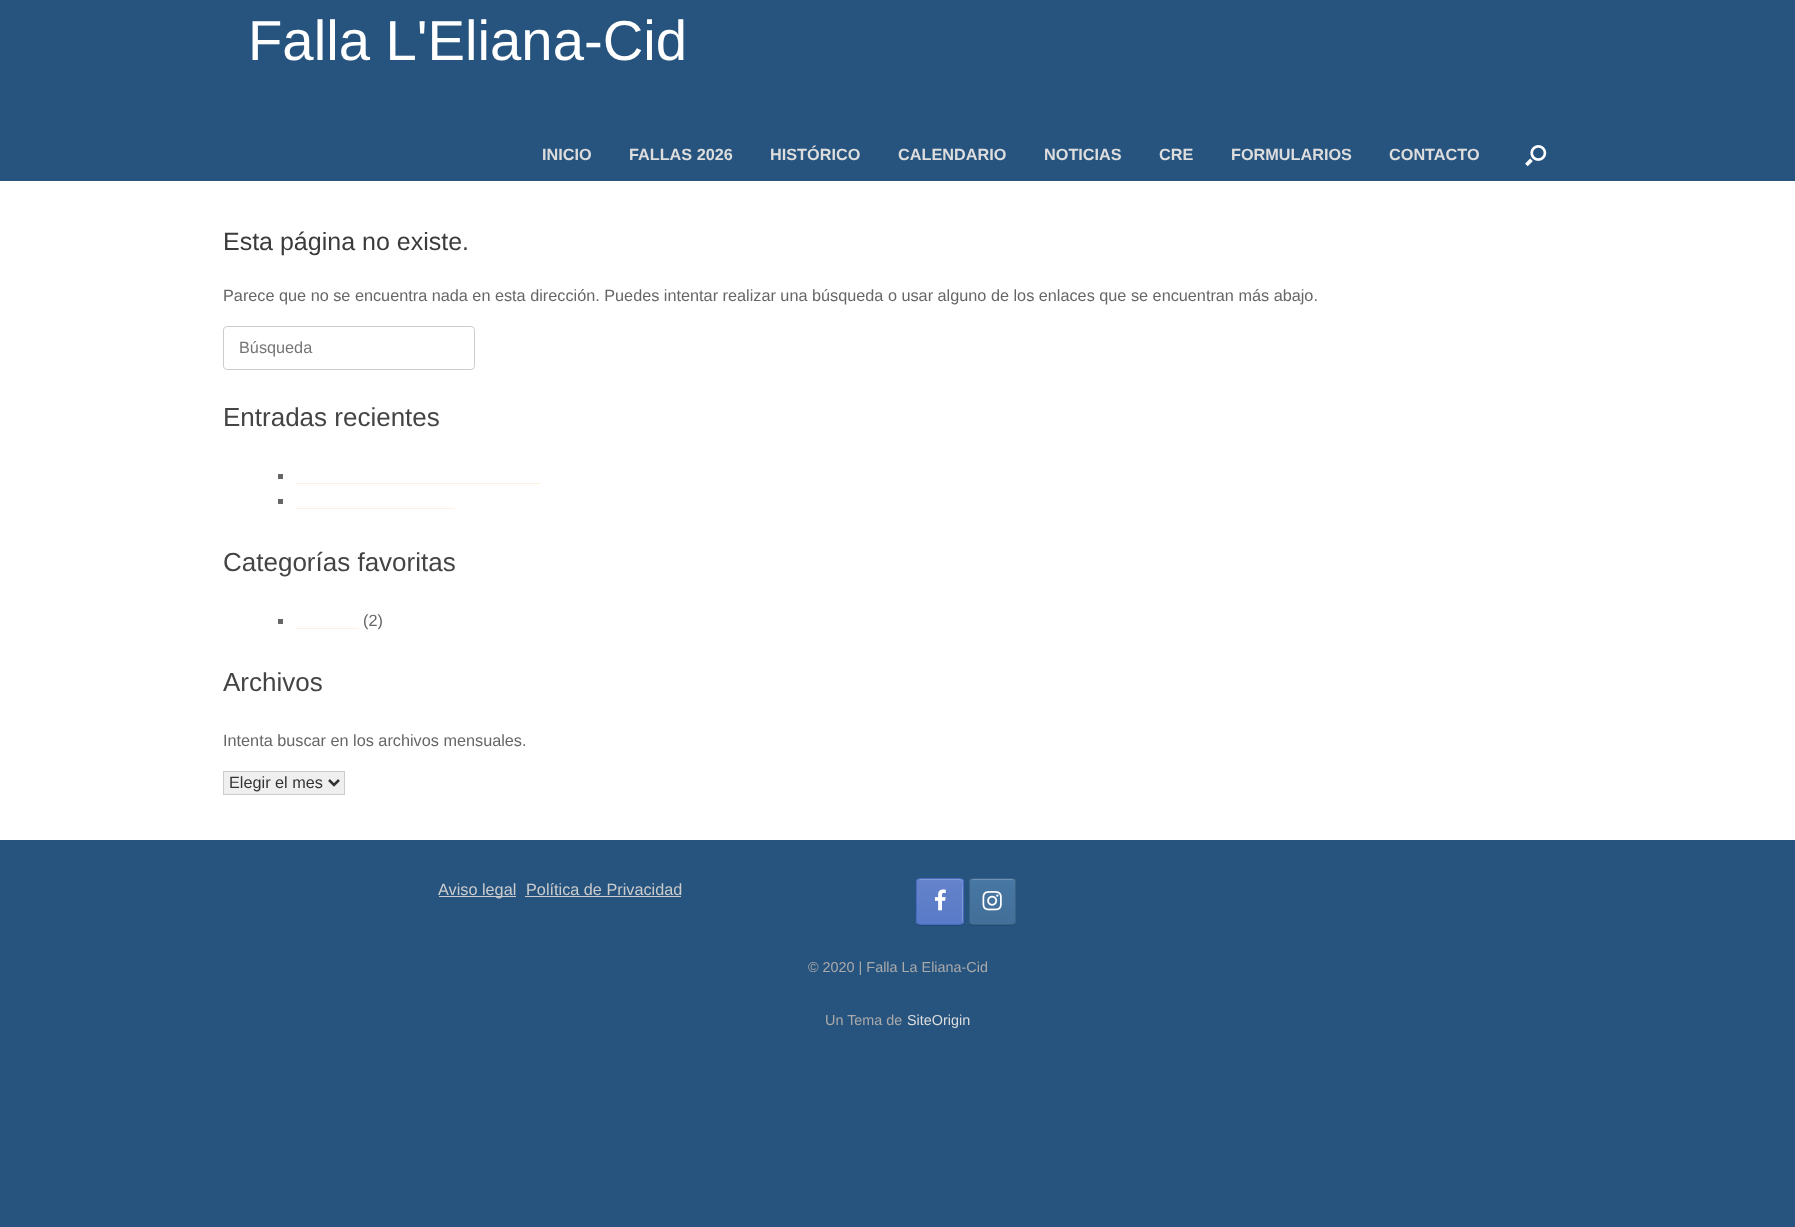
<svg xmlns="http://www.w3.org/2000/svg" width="1795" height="1227">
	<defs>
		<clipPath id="clip1"><rect x="916" y="878" width="48" height="47" rx="4" /></clipPath>
		<linearGradient id="g1" gradientUnits="userSpaceOnUse" x1="940" y1="924" x2="940" y2="879"><stop offset="0" stop-color="#597AC7" /><stop offset="1" stop-color="#6483CB" /></linearGradient>
		<clipPath id="clip2"><rect x="969" y="878" width="47" height="47" rx="4" /></clipPath>
		<linearGradient id="g2" gradientUnits="userSpaceOnUse" x1="993" y1="924" x2="993" y2="879"><stop offset="0" stop-color="#426F98" /><stop offset="1" stop-color="#4777A3" /></linearGradient>
	</defs>
	<rect width="100%" height="100%" fill="#27547E" />
	<text x="248" y="60" font-family="Liberation Sans" font-size="56.25" fill="#FFFFFF">Falla L'Eliana-Cid</text>
	<g font-family="Liberation Sans" font-size="16.25" font-weight="700" fill="#DDDDDD">
		<text x="542" y="160">INICIO</text>
		<text x="629" y="160">FALLAS 2026</text>
		<text x="770" y="160">HISTÓRICO</text>
		<text x="898" y="160">CALENDARIO</text>
		<text x="1044" y="160">NOTICIAS</text>
		<text x="1159" y="160">CRE</text>
		<text x="1231" y="160">FORMULARIOS</text>
		<text x="1389" y="160">CONTACTO</text>
	</g>
	<image x="1525" y="145" width="22" height="22" href="assets/img1.png" />
	<rect x="0" y="181" width="1795" height="659" fill="#FFFFFF" />
	<text x="223" y="250" font-family="Liberation Sans" font-size="25" fill="#3B3B3B">Esta página no existe.</text>
	<text x="223" y="301" font-family="Liberation Sans" font-size="16.25" fill="#666666">Parece que no se encuentra nada en esta dirección. Puedes intentar realizar una búsqueda o usar alguno de los enlaces que se encuentran más abajo.</text>
	<rect x="223.5" y="326.5" width="251" height="43" rx="3.5" fill="none" stroke="#CCCCCC" />
	<text x="239" y="353" font-family="Liberation Sans" font-size="16.25" fill="#757575">Búsqueda</text>
	<text x="223" y="426" font-family="Liberation Sans" font-size="26" fill="#444444">Entradas recientes</text>
	<rect x="278" y="474" width="5" height="5" fill="#666666" />
	<rect x="296" y="483" width="244" height="1" fill="#FEEFDE" />
	<rect x="278" y="499" width="5" height="5" fill="#666666" />
	<rect x="296" y="508" width="159" height="1" fill="#FEEFDE" />
	<text x="223" y="571" font-family="Liberation Sans" font-size="26" fill="#444444">Categorías favoritas</text>
	<rect x="278" y="619" width="5" height="5" fill="#666666" />
	<text x="363" y="626" font-family="Liberation Sans" font-size="16.25" fill="#666666">(2)</text>
	<rect x="296" y="628" width="63" height="1" fill="#FEEFDE" />
	<text x="223" y="691" font-family="Liberation Sans" font-size="26" fill="#444444">Archivos</text>
	<text x="223" y="746" font-family="Liberation Sans" font-size="16.25" fill="#666666">Intenta buscar en los archivos mensuales.</text>
	<rect x="223.5" y="771.5" width="121" height="23" fill="#EFEFEF" stroke="#CCCCCC" />
	<path d="M329 780L334 785L339 780" fill="none" stroke="#333333" stroke-width="2.5" />
	<text x="229" y="788" font-family="Liberation Sans" font-size="16.25" fill="#333333">Elegir el mes</text>
	<rect x="439" y="896" width="77" height="1" fill="#CCCCCC" />
	<g font-family="Liberation Sans" font-size="16.25" fill="#CCCCCC">
		<text x="438" y="895">Aviso legal</text>
		<text x="526" y="895">Política de Privacidad</text>
	</g>
	<rect x="525" y="896" width="156" height="1" fill="#CCCCCC" />
	<rect x="916" y="879" width="48" height="47" rx="4" fill="#000000" fill-opacity="0.1" filter="blur(0.5px)" />
	<g clip-path="url(#clip1)">
		<rect x="916" y="879" width="48" height="45" fill="url(#g1)" />
	</g>
	<path d="M920 880H953C966 880 962 880 962 895V924C962 923 963 922 963 922V882C963 880 962 879 960 879H920C919 879 918 880 918 882C918 881 919 880 920 880Z" fill="#FFFFFF" fill-opacity="0.2" />
	<rect x="916.5" y="878.5" width="47" height="46" rx="3.5" fill="none" stroke="#466BC1" />
	<image x="934" y="889" width="12" height="22" href="assets/img2.png" />
	<rect x="969" y="879" width="47" height="47" rx="4" fill="#000000" fill-opacity="0.1" filter="blur(0.5px)" />
	<g clip-path="url(#clip2)">
		<rect x="969" y="879" width="47" height="45" fill="url(#g2)" />
	</g>
	<path d="M972 880H1012C1014 880 1015 881 1015 882C1015 877 1009 879 1006 879H979C976 879 970 877 970 882C970 881 971 880 972 880Z" fill="#6C92B5" />
	<rect x="969.5" y="878.5" width="46" height="46" rx="3.5" fill="none" stroke="#3A6286" />
	<image x="982" y="891" width="20" height="20" href="assets/img3.png" />
	<g font-family="Liberation Sans" font-size="14.4" fill="#AAAAAA">
		<text x="808" y="972">© 2020 | Falla La Eliana-Cid</text>
		<text x="825" y="1025">Un Tema de</text>
	</g>
	<text x="907" y="1025" font-family="Liberation Sans" font-size="14.4" fill="#DDDDDD">SiteOrigin</text>
</svg>
